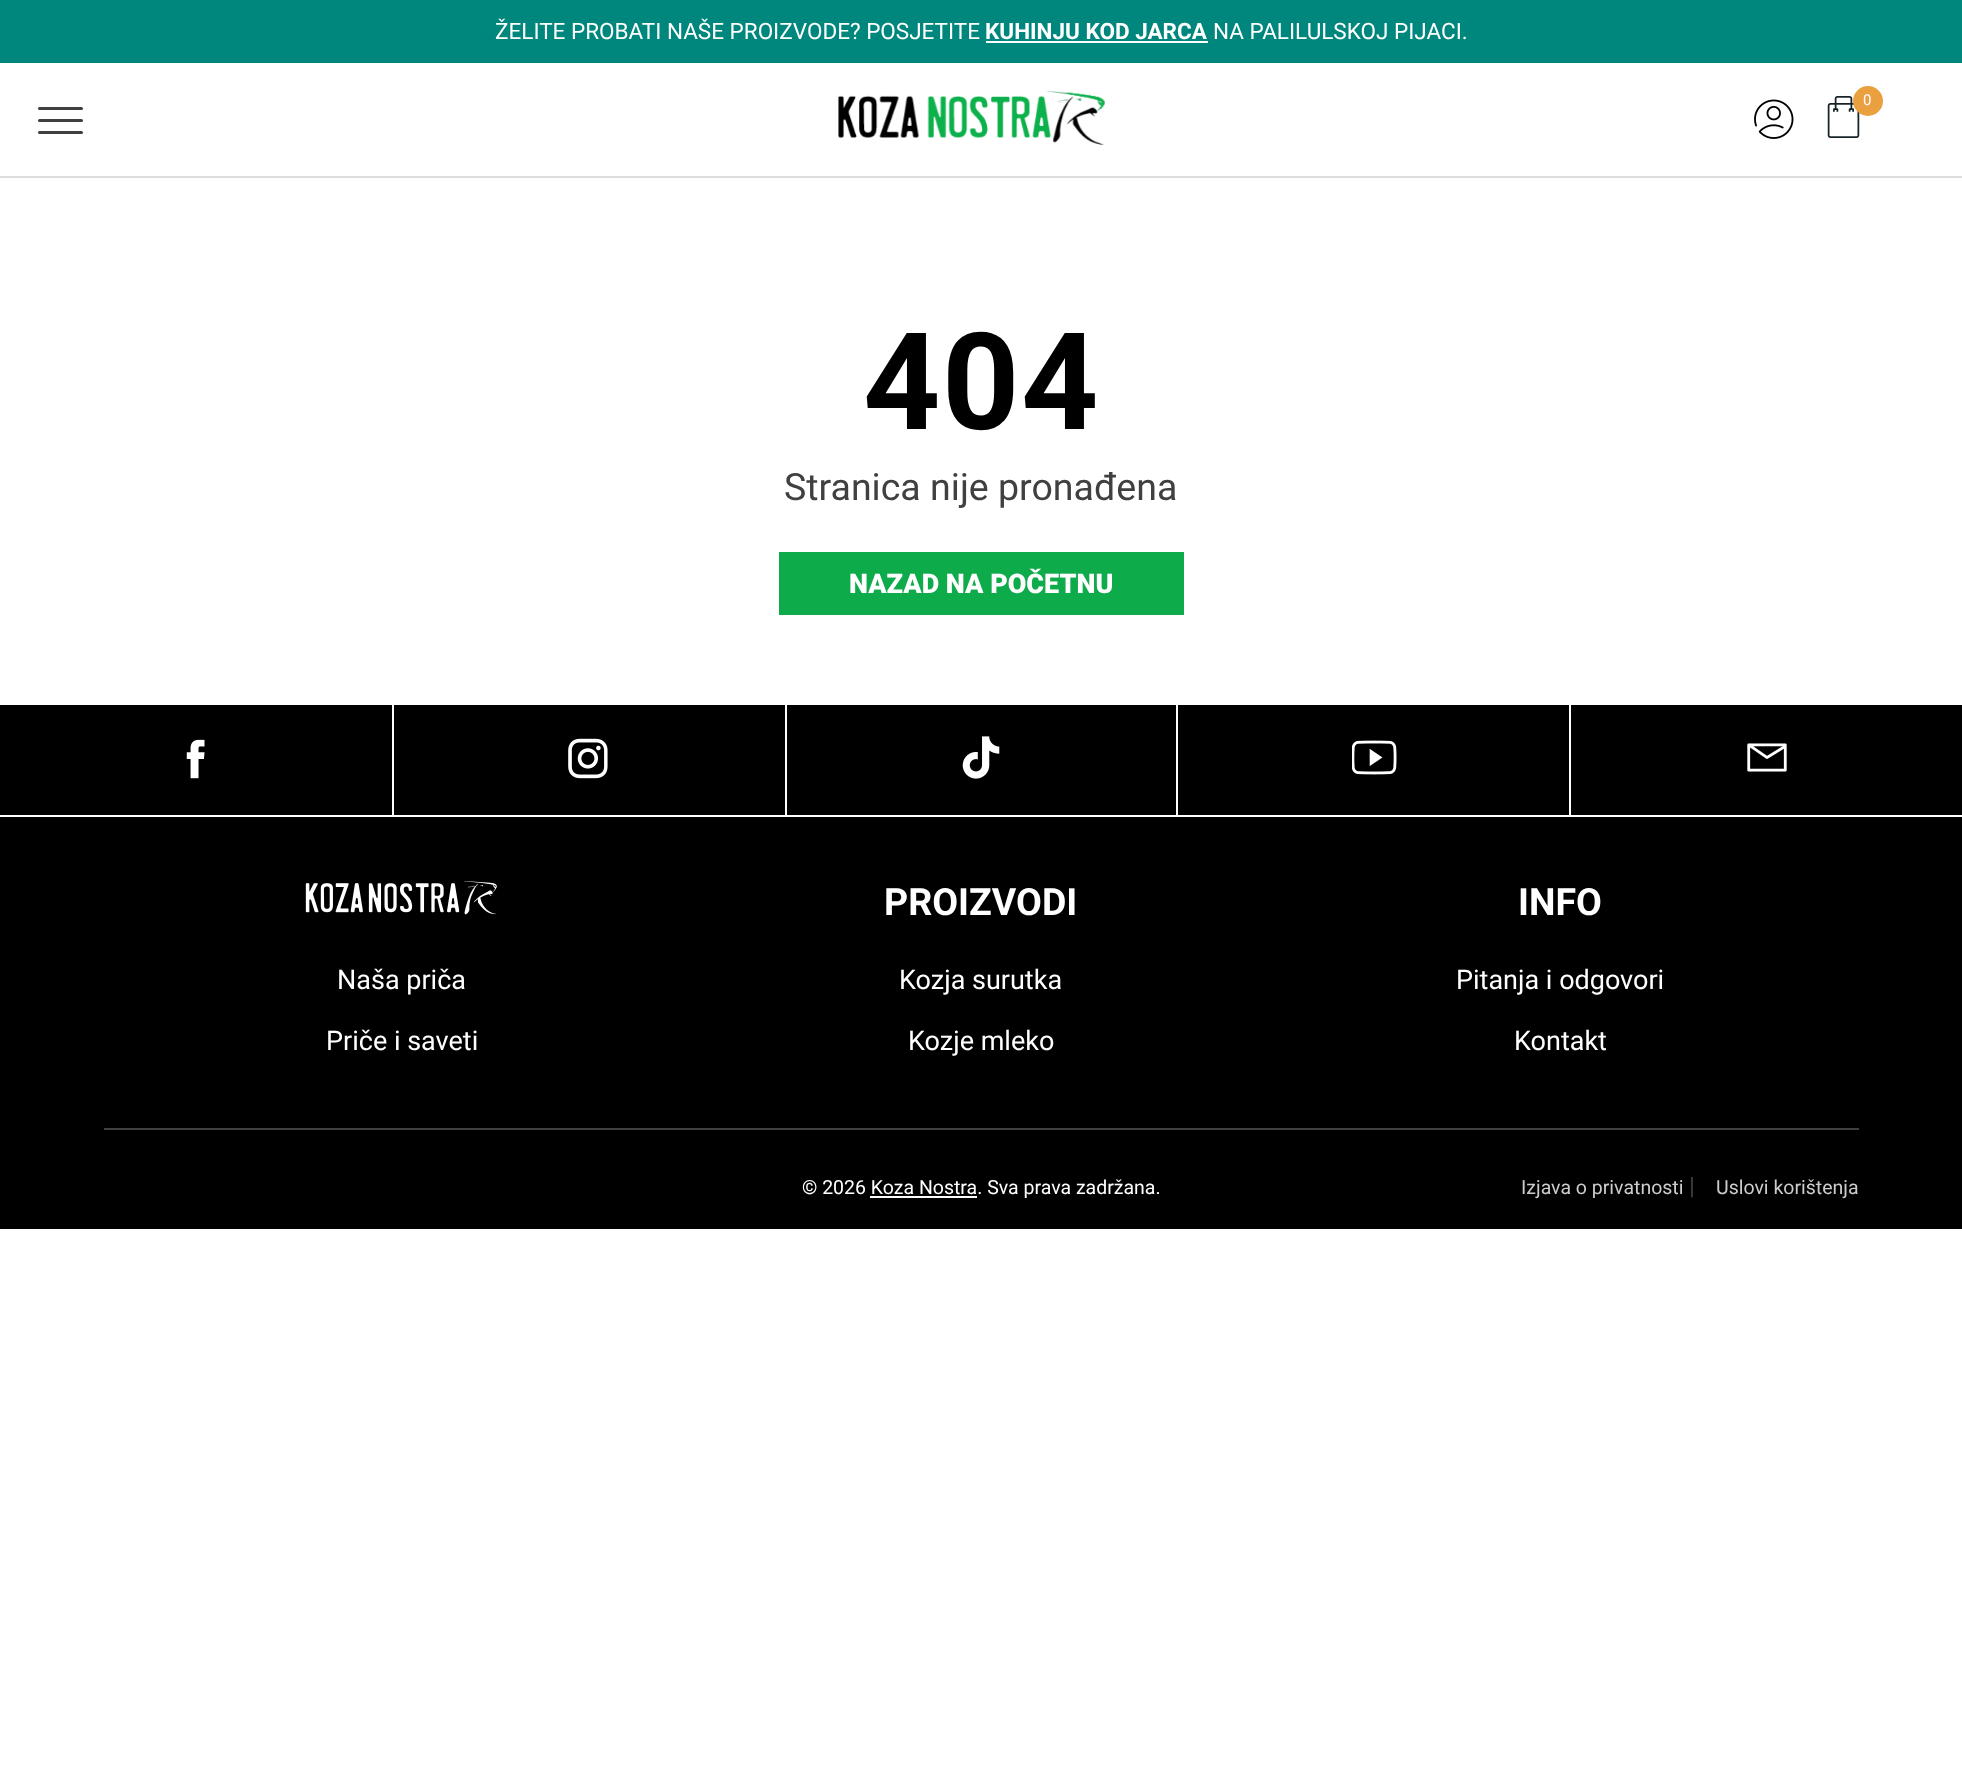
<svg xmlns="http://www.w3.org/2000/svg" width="1962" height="1785">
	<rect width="100%" height="100%" fill="#FFFFFF" />
	<rect x="0" y="176" width="1962" height="2" fill="#DDDDDD" />
	<rect x="0" y="0" width="1962" height="63" fill="#00877D" />
	<text x="495" y="39" font-family="Roboto" font-size="22.5" fill="#FFFFFF">ŽELITE PROBATI NAŠE PROIZVODE? POSJETITE</text>
	<text x="985" y="39" font-family="Roboto" font-size="22.5" font-weight="700" fill="#FFFFFF">KUHINJU KOD JARCA</text>
	<rect x="986" y="41" width="222" height="2" fill="#FFFFFF" />
	<text x="1213" y="39" font-family="Roboto" font-size="22.5" fill="#FFFFFF">NA PALILULSKOJ PIJACI.</text>
	<image x="838" y="90" width="267" height="55" href="assets/img1.png" />
	<image x="1754" y="99" width="40" height="40" href="assets/img2.png" />
	<image x="1827" y="96" width="33" height="42" href="assets/img3.png" />
	<circle cx="1868" cy="101" r="15" fill="#EBA040" />
	<text x="1863" y="105" font-family="Roboto" font-size="15" fill="#FFFFFF">0</text>
	<rect x="38" y="119" width="45" height="3" rx="1.5" fill="#404040" />
	<rect x="38" y="107" width="45" height="3" rx="1.5" fill="#404040" />
	<rect x="38" y="131" width="45" height="3" rx="1.5" fill="#404040" />
	<text x="863" y="429" font-family="Roboto" font-size="135" font-weight="700" letter-spacing="1.5" fill="#000000">404</text>
	<text x="784" y="500" font-family="Roboto" font-size="37.5" fill="#404040">Stranica nije pronađena</text>
	<rect x="779" y="552" width="405" height="63" fill="#0DAB4A" />
	<text x="849" y="593" font-family="Roboto" font-size="27" font-weight="900" fill="#FFFFFF">NAZAD NA POČETNU</text>
	<rect x="0" y="705" width="1962" height="524" fill="#000000" />
	<rect x="0" y="815" width="1962" height="2" fill="#FFFFFF" />
	<rect x="392" y="705" width="2" height="110" fill="#FFFFFF" />
	<image x="186" y="739" width="19" height="40" href="assets/img4.png" />
	<rect x="785" y="705" width="2" height="110" fill="#FFFFFF" />
	<image x="568" y="738" width="40" height="41" href="assets/img5.png" />
	<rect x="1176" y="705" width="2" height="110" fill="#FFFFFF" />
	<image x="962" y="736" width="38" height="43" href="assets/img6.png" />
	<rect x="1569" y="705" width="2" height="110" fill="#FFFFFF" />
	<image x="1352" y="740" width="45" height="35" href="assets/img7.png" />
	<image x="1747" y="743" width="40" height="29" href="assets/img8.png" />
	<image x="305" y="881" width="192" height="34" href="assets/img9.png" />
	<g font-family="Roboto" font-size="27" fill="#FFFFFF">
		<text x="337" y="989">Naša priča</text>
		<text x="326" y="1050">Priče i saveti</text>
	</g>
	<text x="884" y="915" font-family="Roboto" font-size="37.5" font-weight="700" fill="#FFFFFF">PROIZVODI</text>
	<g font-family="Roboto" font-size="27" fill="#FFFFFF">
		<text x="899" y="989">Kozja surutka</text>
		<text x="908" y="1050">Kozje mleko</text>
	</g>
	<text x="1518" y="915" font-family="Roboto" font-size="37.5" font-weight="700" fill="#FFFFFF">INFO</text>
	<g font-family="Roboto" font-size="27" fill="#FFFFFF">
		<text x="1456" y="989">Pitanja i odgovori</text>
		<text x="1514" y="1050">Kontakt</text>
	</g>
	<rect x="104" y="1128" width="1755" height="2" fill="#404040" />
	<text x="802" y="1194" font-family="Roboto" font-size="19.5" fill="#FFFFFF">© 2026 Koza Nostra. Sva prava zadržana.</text>
	<rect x="870" y="1196" width="107" height="2" fill="#FFFFFF" />
	<text x="1521" y="1194" font-family="Roboto" font-size="19.5" fill="#CCCCCC">Izjava o privatnosti</text>
	<text x="1689" y="1194" font-family="Roboto" font-size="24" fill="#404040">|</text>
	<text x="1716" y="1194" font-family="Roboto" font-size="19.5" fill="#CCCCCC">Uslovi korištenja</text>
</svg>
